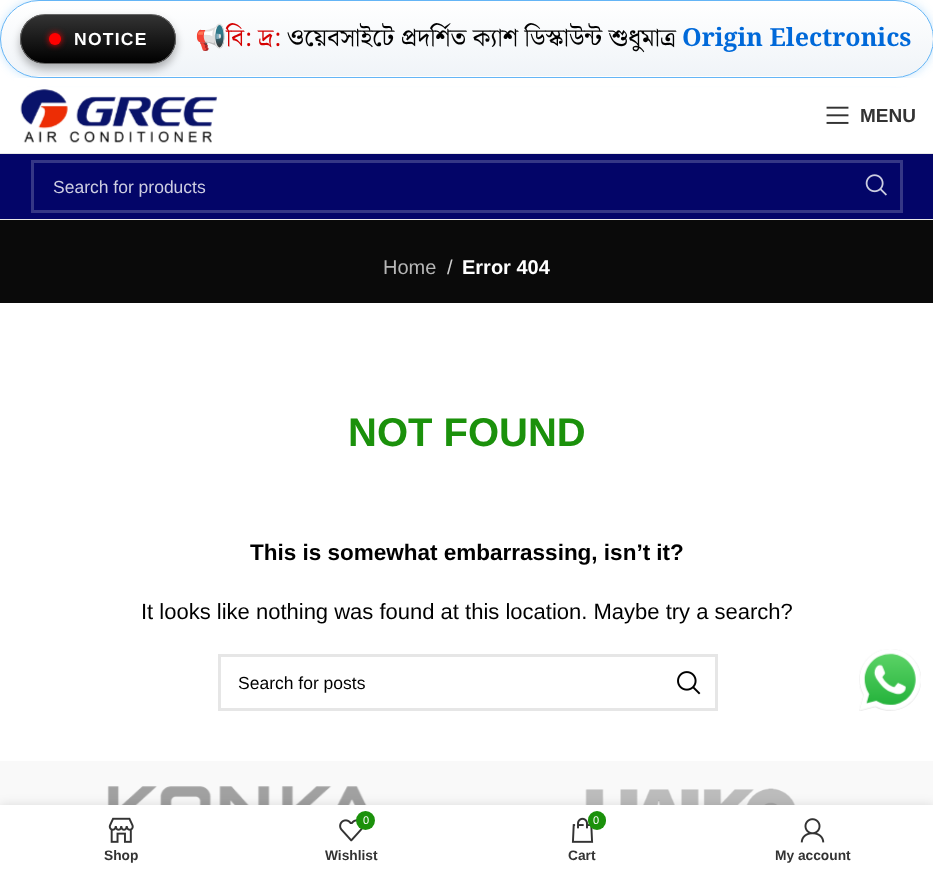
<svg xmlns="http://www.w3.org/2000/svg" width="933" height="873">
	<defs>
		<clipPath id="clip1"><rect x="0" y="0" width="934" height="78" rx="39" /></clipPath>
		<linearGradient id="g1" gradientUnits="userSpaceOnUse" x1="467" y1="1.2" x2="467" y2="76"><stop offset="0" stop-color="#FFFFFF" /><stop offset="1" stop-color="#F0F4F8" /></linearGradient>
		<linearGradient id="g2" gradientUnits="userSpaceOnUse" x1="467" y1="76" x2="467" y2="151"><stop offset="0" stop-color="#FFFFFF" /><stop offset="1" stop-color="#F0F4F8" /></linearGradient>
		<clipPath id="clip2"><rect x="20" y="14" width="156" height="50" rx="25" /></clipPath>
		<linearGradient id="g3" gradientUnits="userSpaceOnUse" x1="98" y1="15" x2="98" y2="63"><stop offset="0" stop-color="#333333" /><stop offset="1" stop-color="#000000" /></linearGradient>
		<clipPath id="clip3"><rect x="195" y="15" width="719" height="48" /></clipPath>
	</defs>
	<rect width="100%" height="100%" fill="#FFFFFF" />
	<rect x="0" y="0" width="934" height="78" rx="39" fill="#2196F3" fill-opacity="0.25" filter="blur(5px)" />
	<g clip-path="url(#clip1)">
		<rect x="0" y="1" width="933" height="75" fill="url(#g1)" />
		<rect x="27" y="76" width="880" height="2" fill="url(#g2)" />
	</g>
	<rect x="0.5" y="0.5" width="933" height="77" rx="38.5" fill="none" stroke="#64B5F6" />
	<rect x="14" y="78" width="907" height="8" fill="#FFFFFF" />
	<rect x="20" y="19" width="156" height="50" rx="25" fill="#000000" fill-opacity="0.3" filter="blur(4px)" />
	<g clip-path="url(#clip2)">
		<rect x="20" y="15" width="156" height="48" fill="url(#g3)" />
	</g>
	<rect x="20.5" y="14.5" width="155" height="49" rx="24.5" fill="none" stroke="#666666" />
	<rect x="49" y="33" width="12" height="12" rx="6" fill="#FF0000" filter="blur(3px)" />
	<circle cx="55" cy="39" r="6" fill="#FF0000" />
	<text x="74" y="45" font-family="Liberation Sans" font-size="17.5" font-weight="700" letter-spacing="1.25" fill="#FFFFFF">NOTICE</text>
	<g clip-path="url(#clip3)">
		<text x="195" y="46" font-family="Noto Color Emoji" font-size="25" fill="#000000">📢</text>
	</g>
	<text x="226" y="46" font-family="Noto Serif Bengali" font-size="25" fill="#D50000">বি: দ্র:</text>
	<text x="287" y="46" font-family="Noto Serif Bengali" font-size="25" fill="#000000">ওয়েবসাইটে প্রদর্শিত ক্যাশ ডিস্কাউন্ট শুধুমাত্র</text>
	<text x="682" y="46" font-family="Noto Serif Bengali" font-size="25" font-weight="700" fill="#0069D9">Origin Electronics</text>
	<rect x="0" y="153" width="933" height="1" fill="#E8E8E8" />
	<image x="20" y="89" width="198" height="54" href="assets/img1.png" />
	<image x="826" y="106" width="23" height="18" href="assets/img2.png" />
	<text x="860" y="122" font-family="Liberation Sans" font-size="19" font-weight="700" fill="#333333">MENU</text>
	<rect x="0" y="154" width="933" height="65" fill="#030568" />
	<rect x="0" y="219" width="933" height="1" fill="#E8E8E8" />
	<rect x="32.5" y="161.5" width="869" height="50" fill="none" stroke="#353786" stroke-width="3" />
	<text x="53" y="193" font-family="Liberation Sans" font-size="17.5" fill="#CDCDE1">Search for products</text>
	<image x="865" y="174" width="22" height="22" href="assets/img3.png" />
	<rect x="0" y="220" width="933" height="83" fill="#0A0A0A" />
	<text x="383" y="274" font-family="Liberation Sans" font-size="20" fill="#B6B6B6">Home</text>
	<text x="447" y="274" font-family="Liberation Sans" font-size="20" fill="#CECECE">/</text>
	<text x="462" y="274" font-family="Liberation Sans" font-size="20" font-weight="700" fill="#FFFFFF">Error 404</text>
	<text x="348" y="446" font-family="Liberation Sans" font-size="40" font-weight="700" fill="#1B910B">NOT FOUND</text>
	<text x="250" y="560" font-family="Liberation Sans" font-size="22.5" font-weight="700" fill="#000000">This is somewhat embarrassing, isn’t it?</text>
	<text x="141" y="619" font-family="Liberation Sans" font-size="22" fill="#000000">It looks like nothing was found at this location. Maybe try a search?</text>
	<rect x="219.5" y="655.5" width="497" height="54" fill="none" stroke="#E6E6E6" stroke-width="3" />
	<text x="238" y="689" font-family="Liberation Sans" font-size="17.5" fill="#000000">Search for posts</text>
	<image x="677" y="671" width="24" height="24" href="assets/img4.png" />
	<rect x="0" y="761" width="933" height="44" fill="#F9F9F9" />
	<image x="107" y="786" width="260" height="19" href="assets/img5.png" />
	<image x="585" y="788" width="211" height="17" href="assets/img6.png" />
	<image x="859" y="649" width="62" height="62" href="assets/img7.png" />
	<rect x="0" y="805" width="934" height="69" fill="#000000" fill-opacity="0.12" filter="blur(5.5px)" />
	<rect x="0" y="805" width="933" height="68" fill="#FFFFFF" />
	<image x="108" y="817" width="26" height="26" href="assets/img8.png" />
	<text x="104" y="860" font-family="Liberation Sans" font-size="13.75" font-weight="700" fill="#333333">Shop</text>
	<image x="339" y="819" width="24" height="23" href="assets/img9.png" />
	<circle cx="365.5" cy="820.5" r="9.5" fill="#1B910B" />
	<text x="363" y="824" font-family="Liberation Sans" font-size="11" fill="#FFFFFF">0</text>
	<text x="325" y="860" font-family="Liberation Sans" font-size="13.75" font-weight="700" fill="#333333">Wishlist</text>
	<image x="571" y="817" width="23" height="26" href="assets/img10.png" />
	<rect x="588" y="811" width="18" height="19" rx="9" fill="#1B910B" />
	<text x="593" y="824" font-family="Liberation Sans" font-size="11" fill="#FFFFFF">0</text>
	<text x="568" y="860" font-family="Liberation Sans" font-size="13.75" font-weight="700" fill="#333333">Cart</text>
	<image x="800" y="818" width="25" height="25" href="assets/img11.png" />
	<text x="775" y="860" font-family="Liberation Sans" font-size="13.75" font-weight="700" fill="#333333">My account</text>
</svg>
